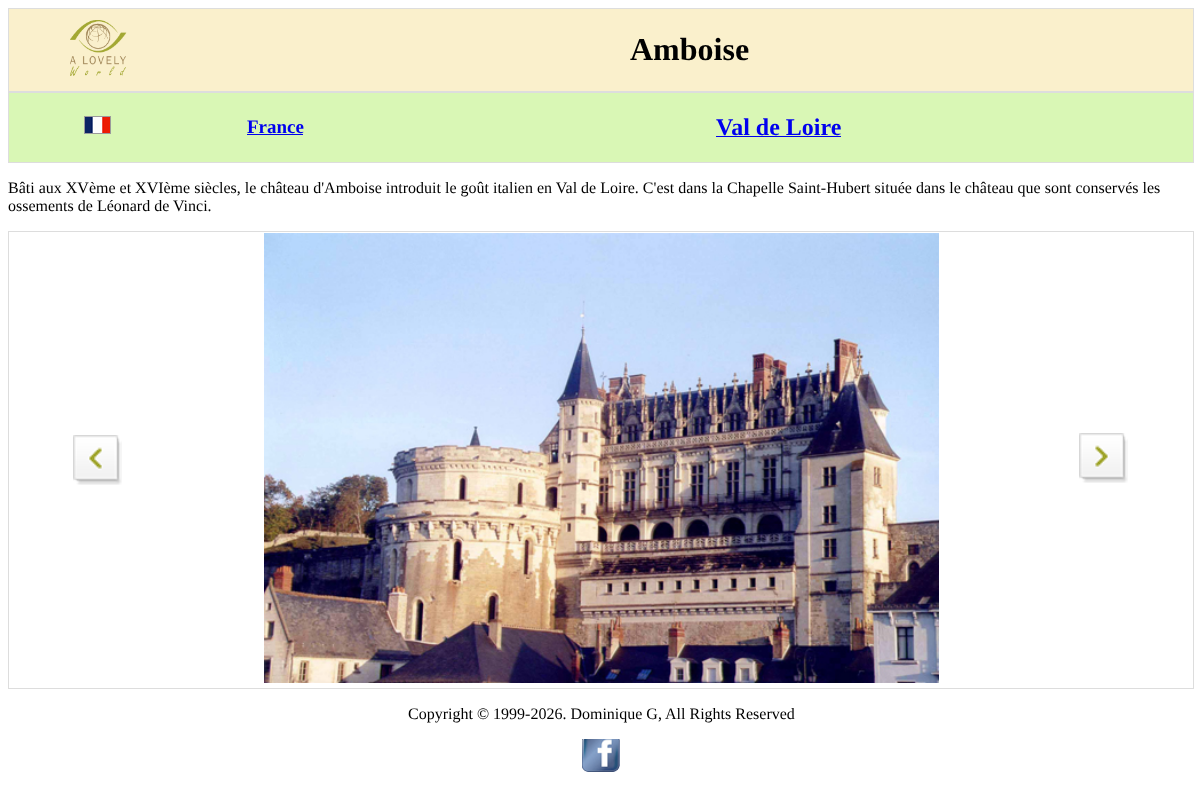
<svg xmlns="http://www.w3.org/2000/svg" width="1202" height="802">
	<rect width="100%" height="100%" fill="#FFFFFF" />
	<rect x="9" y="9" width="1184" height="82" fill="#FAF0CC" />
	<rect x="8" y="8" width="1186" height="1" fill="#DDDDDD" />
	<rect x="1193" y="8" width="1" height="84" fill="#DDDDDD" />
	<rect x="8" y="91" width="1186" height="2" fill="#DDDDDD" />
	<rect x="8" y="8" width="1" height="84" fill="#DDDDDD" />
	<image x="70" y="20" width="57" height="56" href="assets/img1.png" />
	<text x="630" y="60" font-family="Liberation Serif" font-size="32" font-weight="700" fill="#000000">Amboise</text>
	<rect x="9" y="93" width="1184" height="69" fill="#D9F7B5" />
	<rect x="1193" y="92" width="1" height="71" fill="#DDDDDD" />
	<rect x="8" y="162" width="1186" height="1" fill="#DDDDDD" />
	<rect x="8" y="92" width="1" height="71" fill="#DDDDDD" />
	<image x="84" y="116" width="27" height="18" href="assets/img2.png" />
	<text x="247" y="133" font-family="Liberation Serif" font-size="19" font-weight="700" fill="#0000EE">France</text>
	<rect x="247" y="134" width="56" height="1" fill="#0000EE" />
	<text x="716" y="135" font-family="Liberation Serif" font-size="24" font-weight="700" fill="#0000EE">Val de Loire</text>
	<rect x="716" y="136" width="125" height="1" fill="#0000EE" />
	<g font-family="Liberation Serif" font-size="16" fill="#000000">
		<text x="8" y="193">Bâti aux XVème et XVIème siècles, le château d'Amboise introduit le goût italien en Val de Loire. C'est dans la Chapelle Saint-Hubert située dans le château que sont conservés les</text>
		<text x="8" y="211">ossements de Léonard de Vinci.</text>
	</g>
	<rect x="8" y="231" width="1186" height="1" fill="#DDDDDD" />
	<rect x="1193" y="231" width="1" height="458" fill="#DDDDDD" />
	<rect x="8" y="688" width="1186" height="1" fill="#DDDDDD" />
	<rect x="8" y="231" width="1" height="458" fill="#DDDDDD" />
	<image x="73" y="435" width="49" height="50" href="assets/img3.png" />
	<image x="264" y="233" width="675" height="450" href="assets/img4.png" />
	<image x="1079" y="433" width="49" height="50" href="assets/img5.png" />
	<text x="408" y="719" font-family="Liberation Serif" font-size="16" fill="#000000">Copyright © 1999-2026. Dominique G, All Rights Reserved</text>
	<image x="582" y="739" width="38" height="33" href="assets/img6.png" />
</svg>
